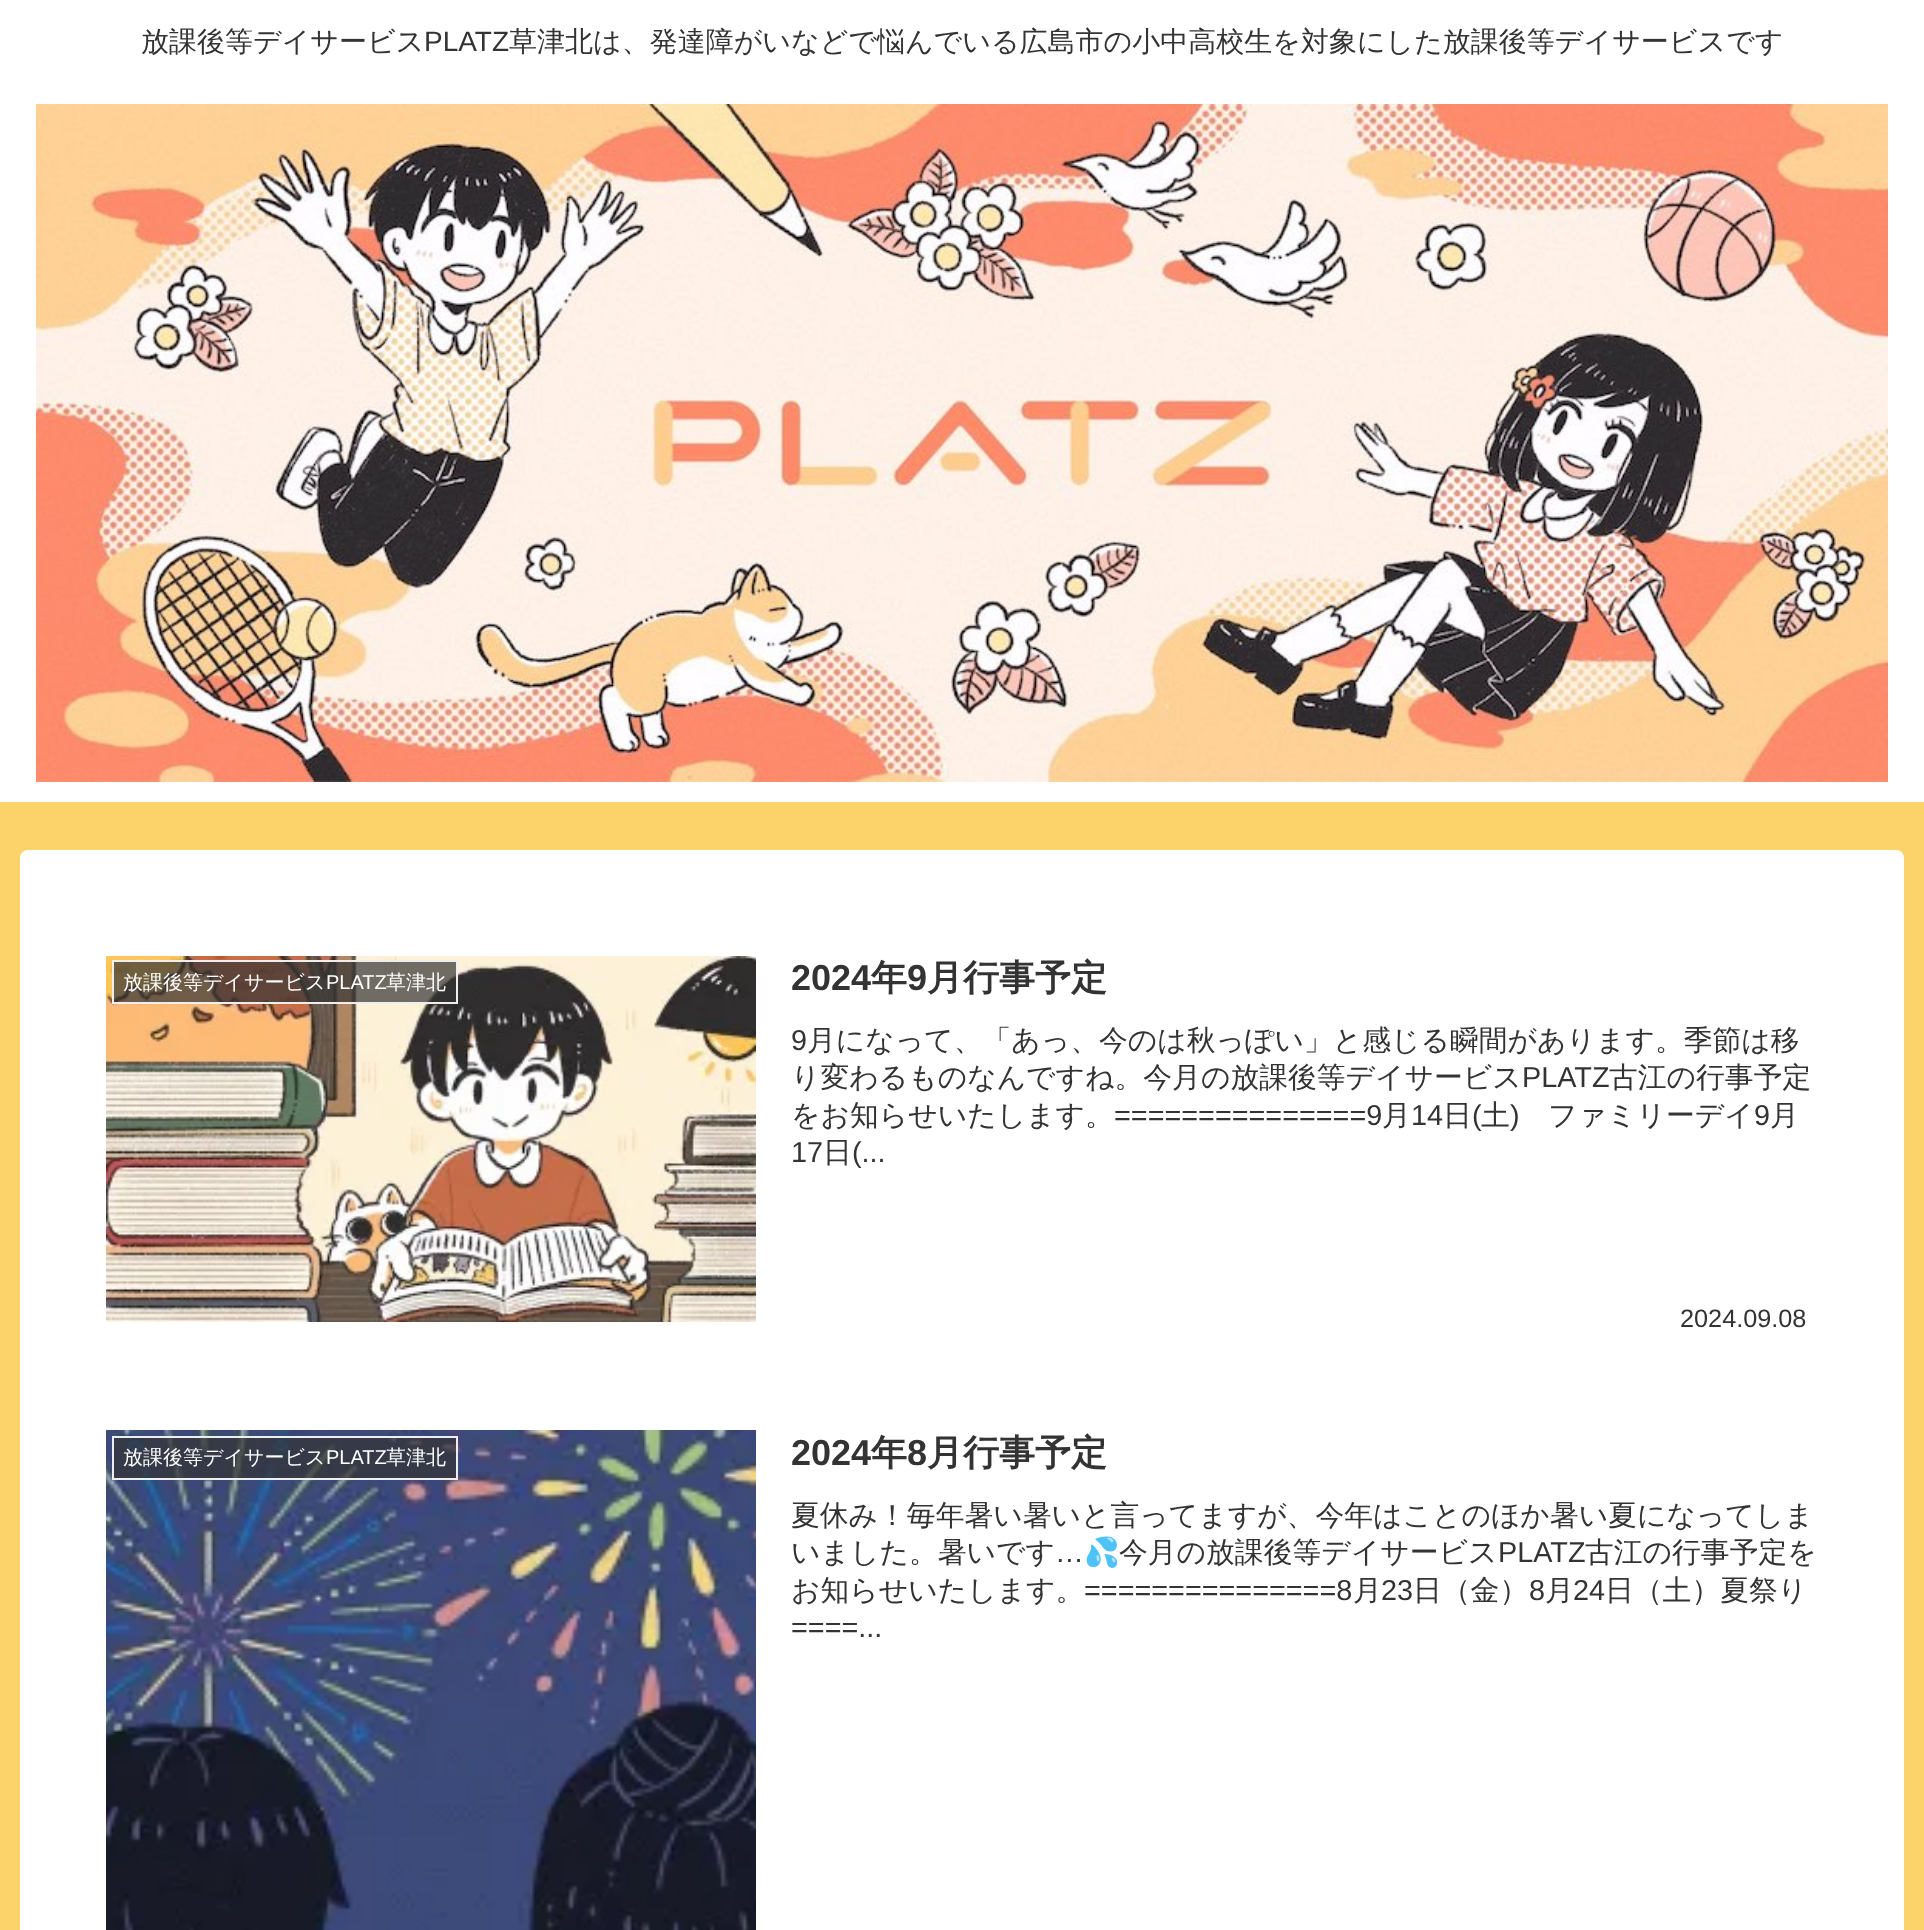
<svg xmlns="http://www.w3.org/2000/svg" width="1924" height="1930">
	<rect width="100%" height="100%" fill="#FCD26A" />
	<rect x="0" y="0" width="1924" height="802" fill="#FFFFFF" />
	<text x="141" y="51" font-family="WenQuanYi Zen Hei" font-size="28" font-weight="500" fill="#333333">放課後等デイサービス</text>
	<text x="424" y="51" font-family="Liberation Sans" font-size="28" fill="#333333">PLATZ</text>
	<text x="509" y="51" font-family="WenQuanYi Zen Hei" font-size="28" font-weight="500" fill="#333333">草津北は、発達障がいなどで悩んでいる広島市の小中高校生を対象にした放課後等デイサービスです</text>
	<image x="36" y="104" width="1852" height="678" href="assets/img1.png" />
	<rect x="20" y="850" width="1884" height="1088" rx="8" fill="#FFFFFF" />
	<image x="106" y="956" width="650" height="366" href="assets/img2.png" />
	<rect x="113" y="961" width="344" height="42" fill="#333333" fill-opacity="0.7" stroke="#EEEEEE" stroke-width="2" />
	<text x="123" y="989" font-family="WenQuanYi Zen Hei" font-size="20" font-weight="500" fill="#FFFFFF">放課後等デイサービス</text>
	<text x="326" y="989" font-family="Liberation Sans" font-size="20" fill="#FFFFFF">PLATZ</text>
	<text x="386" y="989" font-family="WenQuanYi Zen Hei" font-size="20" font-weight="500" fill="#FFFFFF">草津北</text>
	<text x="791" y="990" font-family="Liberation Sans" font-size="36" font-weight="700" fill="#333333">2024</text>
	<text x="871" y="990" font-family="WenQuanYi Zen Hei" font-size="36" font-weight="700" fill="#333333">年</text>
	<text x="907" y="990" font-family="Liberation Sans" font-size="36" font-weight="700" fill="#333333">9</text>
	<text x="927" y="990" font-family="WenQuanYi Zen Hei" font-size="36" font-weight="700" fill="#333333">月行事予定</text>
	<text x="791" y="1050" font-family="Liberation Sans" font-size="28.8" fill="#333333">9</text>
	<g font-family="WenQuanYi Zen Hei" font-size="28.8" font-weight="500" fill="#333333">
		<text x="807" y="1050">月になって、「あっ、今のは秋っぽい」と感じる瞬間があります。季節は移</text>
		<text x="791" y="1087">り変わるものなんですね。今月の放課後等デイサービス</text>
	</g>
	<text x="1522" y="1087" font-family="Liberation Sans" font-size="28.8" fill="#333333">PLATZ</text>
	<g font-family="WenQuanYi Zen Hei" font-size="28.8" font-weight="500" fill="#333333">
		<text x="1609" y="1087">古江の行事予定</text>
		<text x="791" y="1125">をお知らせいたします。</text>
	</g>
	<text x="1114" y="1125" font-family="Liberation Sans" font-size="28.8" fill="#333333">===============9</text>
	<text x="1382" y="1125" font-family="WenQuanYi Zen Hei" font-size="28.8" font-weight="500" fill="#333333">月</text>
	<text x="1411" y="1125" font-family="Liberation Sans" font-size="28.8" fill="#333333">14</text>
	<text x="1443" y="1125" font-family="WenQuanYi Zen Hei" font-size="28.8" font-weight="500" fill="#333333">日</text>
	<text x="1472" y="1125" font-family="Liberation Sans" font-size="28.8" fill="#333333">(</text>
	<text x="1481" y="1125" font-family="WenQuanYi Zen Hei" font-size="28.8" font-weight="500" fill="#333333">土</text>
	<text x="1510" y="1125" font-family="Liberation Sans" font-size="28.8" fill="#333333">)</text>
	<text x="1548" y="1125" font-family="WenQuanYi Zen Hei" font-size="28.8" font-weight="500" fill="#333333">ファミリーデイ</text>
	<text x="1754" y="1125" font-family="Liberation Sans" font-size="28.8" fill="#333333">9</text>
	<text x="1770" y="1125" font-family="WenQuanYi Zen Hei" font-size="28.8" font-weight="500" fill="#333333">月</text>
	<text x="791" y="1162" font-family="Liberation Sans" font-size="28.8" fill="#333333">17</text>
	<text x="823" y="1162" font-family="WenQuanYi Zen Hei" font-size="28.8" font-weight="500" fill="#333333">日</text>
	<text x="852" y="1162" font-family="Liberation Sans" font-size="28.8" fill="#333333">(...</text>
	<text x="1680" y="1327" font-family="Liberation Sans" font-size="25.25" fill="#333333">2024.09.08</text>
	<image x="106" y="1430" width="650" height="500" href="assets/img3.png" />
	<rect x="113" y="1437" width="344" height="42" fill="#333333" fill-opacity="0.7" stroke="#EEEEEE" stroke-width="2" />
	<text x="123" y="1464" font-family="WenQuanYi Zen Hei" font-size="20" font-weight="500" fill="#FFFFFF">放課後等デイサービス</text>
	<text x="326" y="1464" font-family="Liberation Sans" font-size="20" fill="#FFFFFF">PLATZ</text>
	<text x="386" y="1464" font-family="WenQuanYi Zen Hei" font-size="20" font-weight="500" fill="#FFFFFF">草津北</text>
	<text x="791" y="1465" font-family="Liberation Sans" font-size="36" font-weight="700" fill="#333333">2024</text>
	<text x="871" y="1465" font-family="WenQuanYi Zen Hei" font-size="36" font-weight="700" fill="#333333">年</text>
	<text x="907" y="1465" font-family="Liberation Sans" font-size="36" font-weight="700" fill="#333333">8</text>
	<text x="927" y="1465" font-family="WenQuanYi Zen Hei" font-size="36" font-weight="700" fill="#333333">月行事予定</text>
	<g font-family="WenQuanYi Zen Hei" font-size="28.8" font-weight="500" fill="#333333">
		<text x="791" y="1525">夏休み！毎年暑い暑いと言ってますが、今年はことのほか暑い夏になってしま</text>
		<text x="791" y="1562">いました。暑いです</text>
	</g>
	<text x="1055" y="1562" font-family="Liberation Sans" font-size="28.8" fill="#333333">…</text>
	<text x="1084" y="1562" font-family="Noto Color Emoji" font-size="28.8" fill="#333333">💦</text>
	<text x="1119" y="1562" font-family="WenQuanYi Zen Hei" font-size="28.8" font-weight="500" fill="#333333">今月の放課後等デイサービス</text>
	<text x="1498" y="1562" font-family="Liberation Sans" font-size="28.8" fill="#333333">PLATZ</text>
	<g font-family="WenQuanYi Zen Hei" font-size="28.8" font-weight="500" fill="#333333">
		<text x="1585" y="1562">古江の行事予定を</text>
		<text x="791" y="1600">お知らせいたします。</text>
	</g>
	<text x="1084" y="1600" font-family="Liberation Sans" font-size="28.8" fill="#333333">===============8</text>
	<text x="1353" y="1600" font-family="WenQuanYi Zen Hei" font-size="28.8" font-weight="500" fill="#333333">月</text>
	<text x="1381" y="1600" font-family="Liberation Sans" font-size="28.8" fill="#333333">23</text>
	<text x="1413" y="1600" font-family="WenQuanYi Zen Hei" font-size="28.8" font-weight="500" fill="#333333">日（金）</text>
	<text x="1529" y="1600" font-family="Liberation Sans" font-size="28.8" fill="#333333">8</text>
	<text x="1545" y="1600" font-family="WenQuanYi Zen Hei" font-size="28.8" font-weight="500" fill="#333333">月</text>
	<text x="1573" y="1600" font-family="Liberation Sans" font-size="28.8" fill="#333333">24</text>
	<text x="1605" y="1600" font-family="WenQuanYi Zen Hei" font-size="28.8" font-weight="500" fill="#333333">日（土）夏祭り</text>
	<text x="791" y="1637" font-family="Liberation Sans" font-size="28.8" fill="#333333">====...</text>
</svg>
